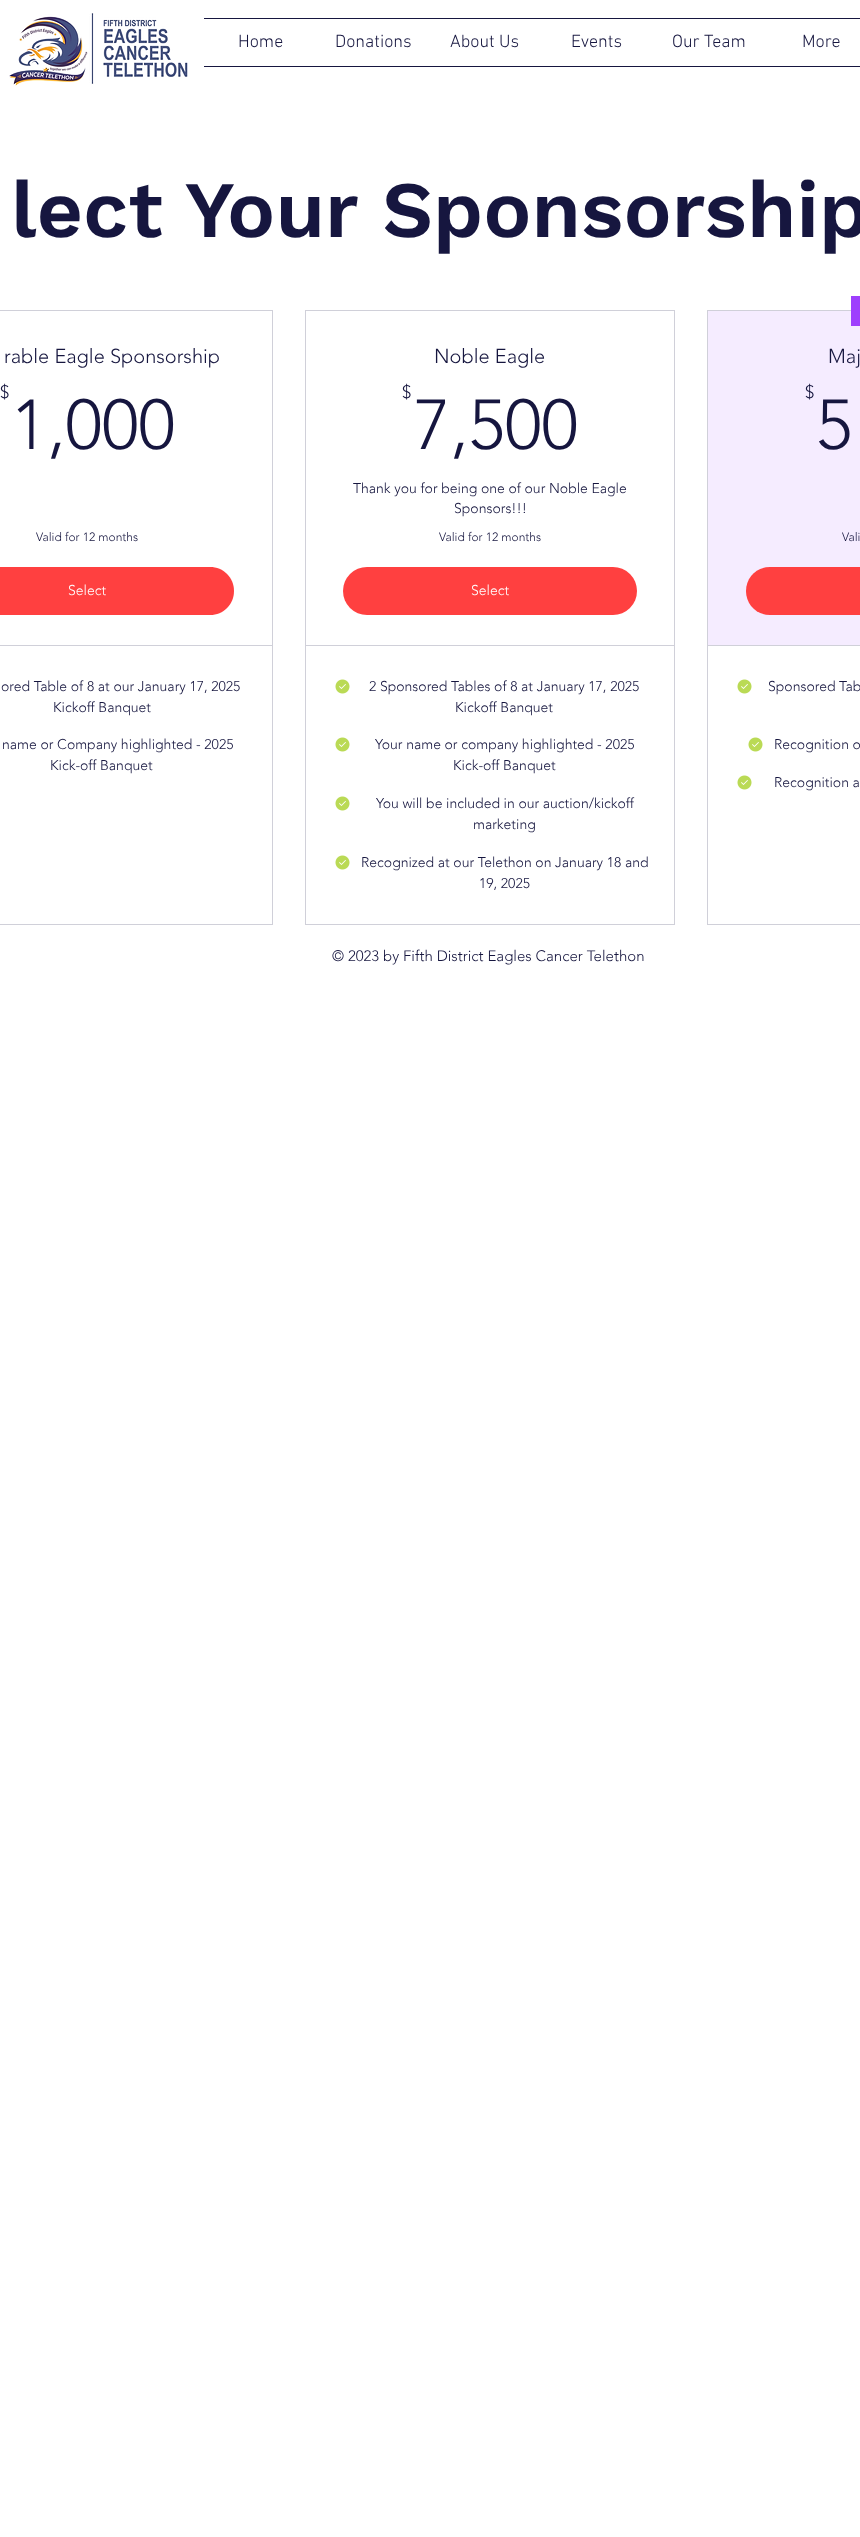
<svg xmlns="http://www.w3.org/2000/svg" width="860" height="2537">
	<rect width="100%" height="100%" fill="#FFFFFF" />
	<image x="9" y="13" width="179" height="73" href="assets/img1.png" />
	<rect x="204" y="18" width="656" height="1" fill="#16163F" />
	<rect x="204" y="66" width="656" height="1" fill="#16163F" />
	<g font-family="'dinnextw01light'" font-size="18" font-weight="300" fill="#16163F">
		<text x="238" y="47">Home</text>
		<text x="335" y="47">Donations</text>
		<text x="450" y="47">About Us</text>
		<text x="571" y="47">Events</text>
		<text x="672" y="47">Our Team</text>
		<text x="802" y="47">More</text>
	</g>
	<text x="11" y="237" font-family="Work Sans" font-size="80" font-weight="600" fill="#16163F">lect Your Sponsorship</text>
	<rect x="-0.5" y="310.5" width="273" height="614" fill="none" stroke="#D0D0D9" />
	<text x="4" y="363" font-family="'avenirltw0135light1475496'" font-size="20" font-weight="300" fill="#16163F">rable Eagle Sponsorship</text>
	<text x="0" y="398" font-family="'avenirltw0135light1475496'" font-size="18" font-weight="300" fill="#16163F">$</text>
	<text x="11" y="449" font-family="'avenirltw0135light1475496'" font-size="70" font-weight="300" fill="#16163F">1,000</text>
	<text x="36" y="541" font-family="'avenirltw0135light1475496'" font-size="12" font-weight="300" fill="#16163F">Valid for 12 months</text>
	<path d="M0 567H210C223.5 567 234 577.5 234 591C234 604.5 223.5 615 210 615H0Z" fill="#FF4040" />
	<text x="68" y="595" font-family="'avenirltw0135light1475496'" font-size="14" font-weight="300" fill="#FFFFFF">Select</text>
	<rect x="0" y="645" width="272" height="1" fill="#D0D0D9" />
	<g font-family="'avenirltw0135light1475496'" font-size="14" font-weight="300" fill="#16163F">
		<text x="1" y="691">ored Table of 8 at our January 17, 2025</text>
		<text x="53" y="712">Kickoff Banquet</text>
		<text x="2" y="749">name or Company highlighted - 2025</text>
		<text x="50" y="770">Kick-off Banquet</text>
	</g>
	<rect x="305.5" y="310.5" width="369" height="614" fill="none" stroke="#D0D0D9" />
	<text x="434" y="363" font-family="'avenirltw0135light1475496'" font-size="20" font-weight="300" fill="#16163F">Noble Eagle</text>
	<text x="402" y="398" font-family="'avenirltw0135light1475496'" font-size="18" font-weight="300" fill="#16163F">$</text>
	<text x="414" y="449" font-family="'avenirltw0135light1475496'" font-size="70" font-weight="300" fill="#16163F">7,500</text>
	<g font-family="'avenirltw0135light1475496'" font-size="14" font-weight="300" fill="#16163F">
		<text x="353" y="493">Thank you for being one of our Noble Eagle</text>
		<text x="454" y="513">Sponsors!!!</text>
	</g>
	<text x="439" y="541" font-family="'avenirltw0135light1475496'" font-size="12" font-weight="300" fill="#16163F">Valid for 12 months</text>
	<rect x="343" y="567" width="294" height="48" rx="24" fill="#FF4040" />
	<text x="471" y="595" font-family="'avenirltw0135light1475496'" font-size="14" font-weight="300" fill="#FFFFFF">Select</text>
	<rect x="306" y="645" width="368" height="1" fill="#D0D0D9" />
	<image x="335" y="679" width="15" height="15" href="assets/img2.png" />
	<g font-family="'avenirltw0135light1475496'" font-size="14" font-weight="300" fill="#16163F">
		<text x="369" y="691">2 Sponsored Tables of 8 at January 17, 2025</text>
		<text x="455" y="712">Kickoff Banquet</text>
	</g>
	<image x="335" y="737" width="15" height="15" href="assets/img2.png" />
	<g font-family="'avenirltw0135light1475496'" font-size="14" font-weight="300" fill="#16163F">
		<text x="375" y="749">Your name or company highlighted - 2025</text>
		<text x="453" y="770">Kick-off Banquet</text>
	</g>
	<image x="335" y="796" width="15" height="15" href="assets/img2.png" />
	<g font-family="'avenirltw0135light1475496'" font-size="14" font-weight="300" fill="#16163F">
		<text x="376" y="808">You will be included in our auction/kickoff</text>
		<text x="473" y="829">marketing</text>
	</g>
	<image x="335" y="855" width="15" height="15" href="assets/img2.png" />
	<g font-family="'avenirltw0135light1475496'" font-size="14" font-weight="300" fill="#16163F">
		<text x="361" y="867">Recognized at our Telethon on January 18 and</text>
		<text x="479" y="888">19, 2025</text>
	</g>
	<rect x="707.5" y="310.5" width="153" height="614" fill="none" stroke="#D0D0D9" />
	<rect x="708" y="311" width="152" height="334" fill="#F5ECFF" />
	<rect x="851" y="296" width="9" height="30" fill="#9E3FFD" />
	<text x="828" y="363" font-family="'avenirltw0135light1475496'" font-size="20" font-weight="300" fill="#16163F">Maj</text>
	<text x="805" y="398" font-family="'avenirltw0135light1475496'" font-size="18" font-weight="300" fill="#16163F">$</text>
	<text x="816" y="449" font-family="'avenirltw0135light1475496'" font-size="70" font-weight="300" fill="#16163F">5</text>
	<text x="842" y="541" font-family="'avenirltw0135light1475496'" font-size="12" font-weight="300" fill="#16163F">Vali</text>
	<path d="M770 567H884V615H770C756.5 615 746 604.5 746 591C746 577.5 756.5 567 770 567Z" fill="#FF4040" />
	<rect x="708" y="645" width="152" height="1" fill="#D0D0D9" />
	<image x="737" y="679" width="15" height="15" href="assets/img2.png" />
	<text x="768" y="691" font-family="'avenirltw0135light1475496'" font-size="14" font-weight="300" fill="#16163F">Sponsored Tab</text>
	<image x="748" y="737" width="15" height="15" href="assets/img2.png" />
	<text x="774" y="749" font-family="'avenirltw0135light1475496'" font-size="14" font-weight="300" fill="#16163F">Recognition o</text>
	<image x="737" y="775" width="15" height="15" href="assets/img2.png" />
	<text x="774" y="787" font-family="'avenirltw0135light1475496'" font-size="14" font-weight="300" fill="#16163F">Recognition a</text>
	<text x="332" y="961" font-family="'avenirltw0135light1475496'" font-size="15" font-weight="300" fill="#16163F">© 2023 by Fifth District Eagles Cancer Telethon</text>
</svg>
